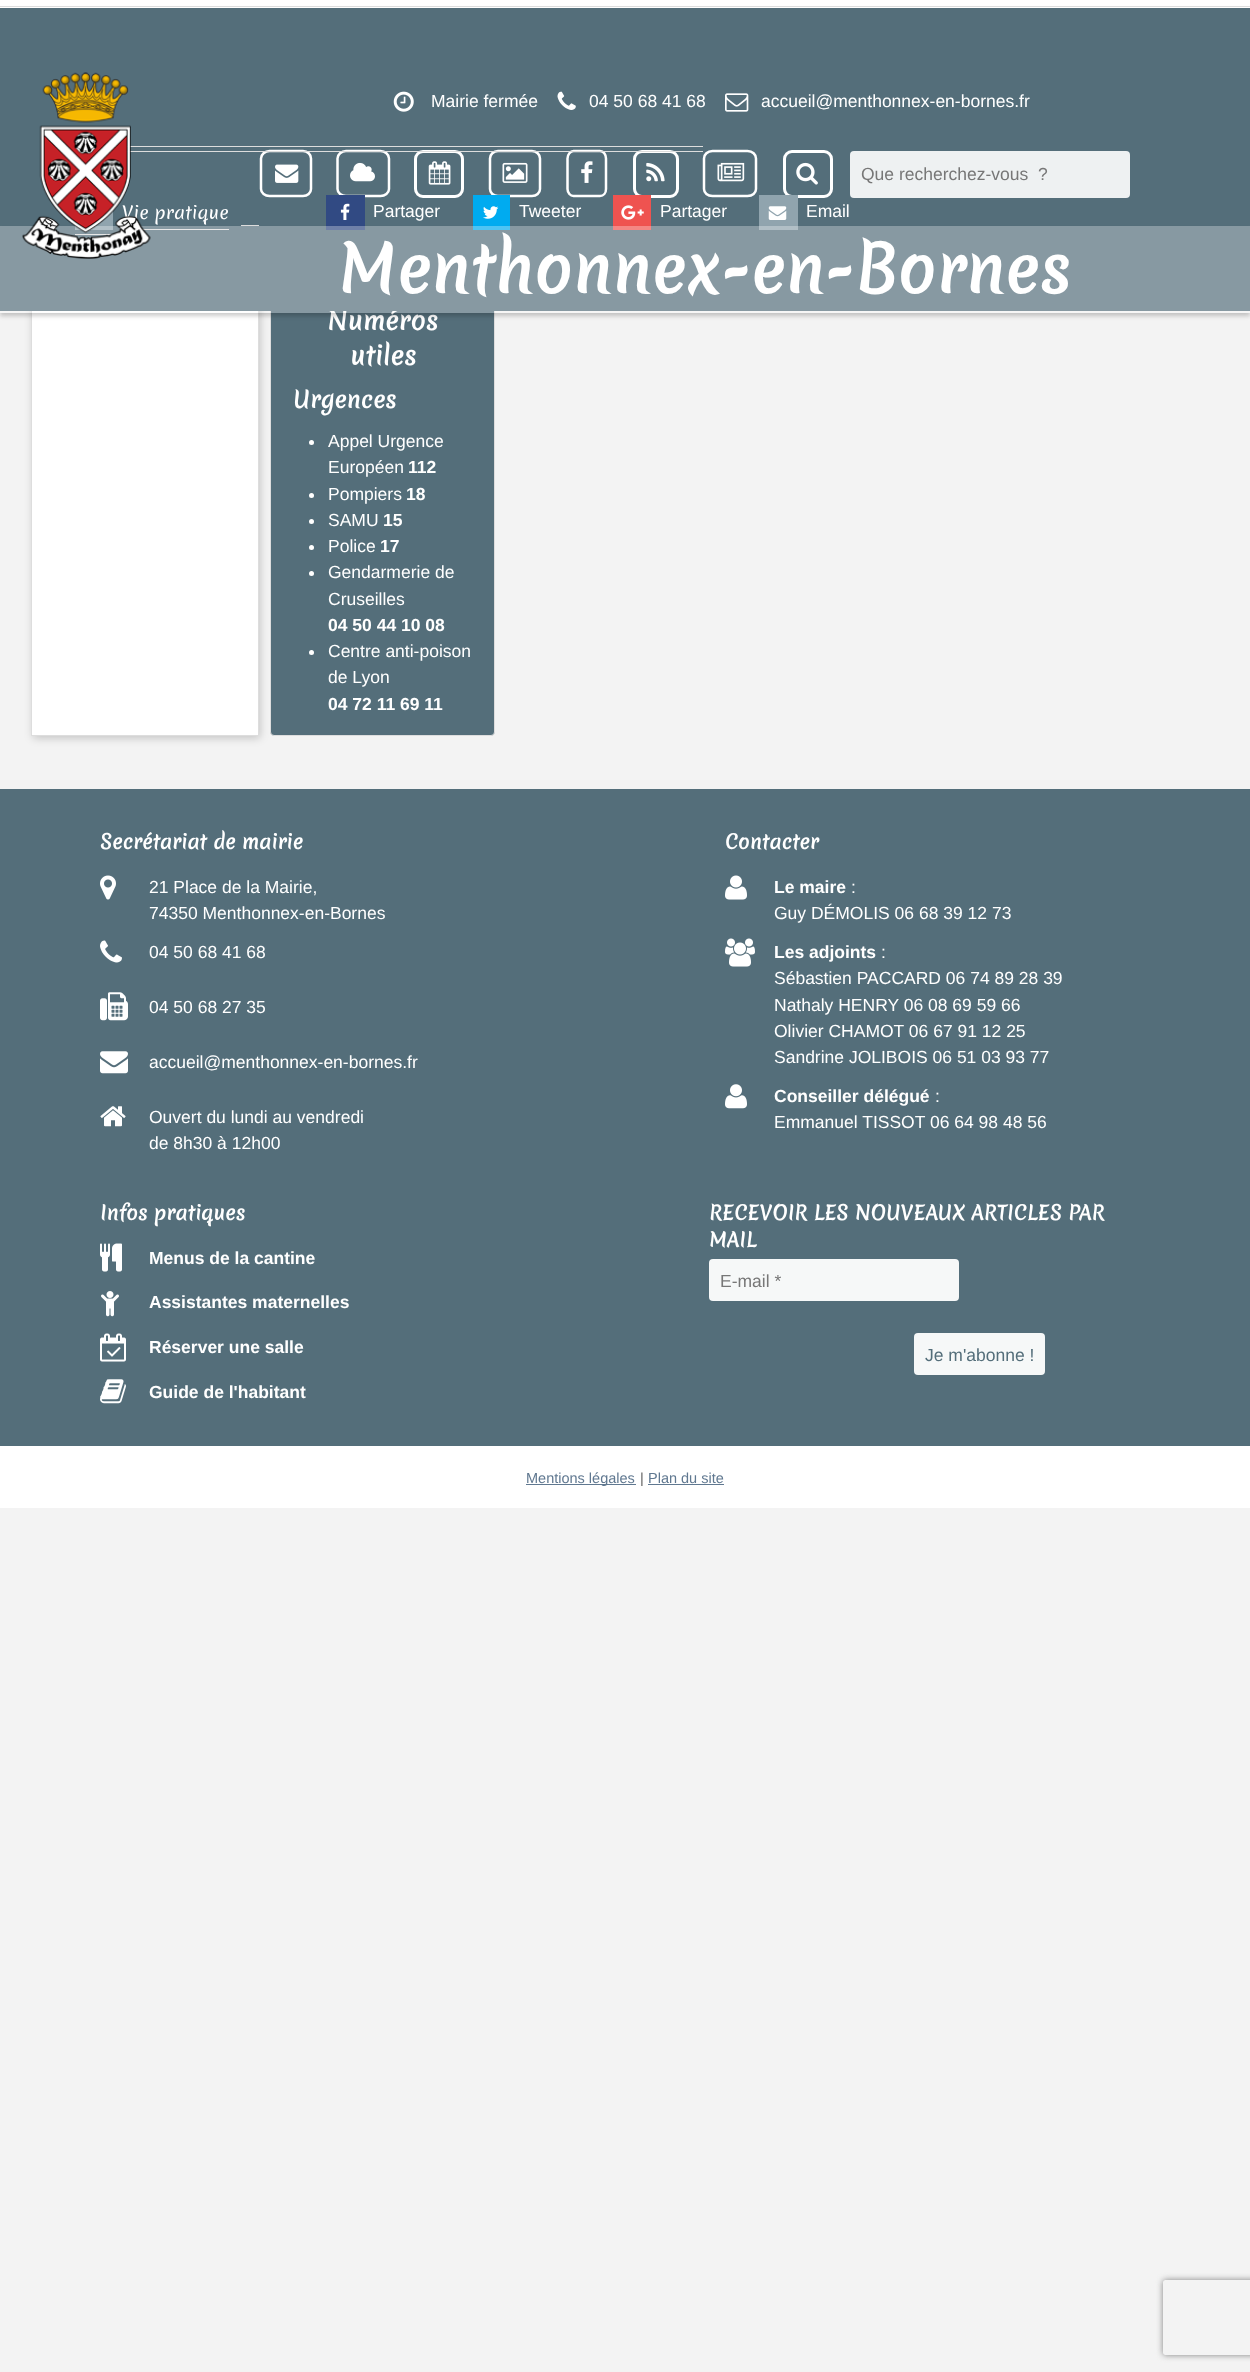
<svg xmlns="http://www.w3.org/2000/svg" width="1250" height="2372">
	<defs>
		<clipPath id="clip1"><path d="M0 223H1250V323H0ZM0 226H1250V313H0Z" clip-rule="evenodd" /></clipPath>
		<clipPath id="clip2"><path d="M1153 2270H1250V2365H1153ZM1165.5 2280H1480.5C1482 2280 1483 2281 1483 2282.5V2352.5C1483 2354 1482 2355 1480.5 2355H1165.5C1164 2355 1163 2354 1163 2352.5V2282.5C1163 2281 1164 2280 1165.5 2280Z" clip-rule="evenodd" /></clipPath>
	</defs>
	<rect width="100%" height="100%" fill="#F3F3F3" />
	<rect x="0" y="0" width="1250" height="8" fill="#FFFFFF" />
	<rect x="0" y="6" width="1250" height="1" fill="#DDDDDD" />
	<rect x="33" y="285" width="227" height="453" fill="#000000" fill-opacity="0.2" filter="blur(4px)" />
	<rect x="32" y="311" width="226" height="424" fill="#FFFFFF" />
	<rect x="31.5" y="284.5" width="227" height="451" fill="none" stroke="#DDDDDD" />
	<rect x="270.5" y="284.5" width="224" height="451" rx="3.5" fill="#546E7A" stroke="#DDDDDD" />
	<text x="327" y="330" font-family="Merienda" font-size="25" font-weight="700" fill="#FFFFFF">Numéros</text>
	<rect x="0" y="8" width="1250" height="303" fill="#546E7A" />
	<rect x="75" y="234" width="38" height="1" fill="#DDDDDD" />
	<rect x="121" y="229" width="108" height="1" fill="#DDDDDD" />
	<rect x="241" y="225" width="18" height="1" fill="#DDDDDD" />
	<rect x="75" y="195" width="38" height="35" fill="#90A4AE" />
	<path d="M346 151H380.5C385 151 389 154.5 389 158.5V189C389 193 385 196 380.5 196H346C341.5 196 337.5 193 337.5 189V158.5C337.5 154.5 341.5 151 346 151Z" fill="none" stroke="#FFFFFF" stroke-width="2.5" />
	<rect x="326" y="195" width="39" height="35" fill="#314A83" />
	<path d="M498 151H532C536.5 151 540 154.5 540 158.5V189C540 193 536.5 196 532 196H498C493.5 196 490 193 490 189V158.5C490 154.5 493.5 151 498 151Z" fill="none" stroke="#FFFFFF" stroke-width="2.5" />
	<rect x="473" y="195" width="37" height="35" fill="#00ABF0" />
	<rect x="634.5" y="151.5" width="43" height="45" rx="7.5" fill="none" stroke="#FFFFFF" stroke-width="3" />
	<rect x="613" y="195" width="38" height="35" fill="#EF5350" />
	<rect x="784.5" y="151.5" width="47" height="45" rx="7.5" fill="none" stroke="#FFFFFF" stroke-width="3" />
	<rect x="759" y="195" width="39" height="35" fill="#90A4AE" />
	<g clip-path="url(#clip1)">
		<rect x="0" y="230" width="1250" height="86" fill="#000000" fill-opacity="0.2" filter="blur(2px)" />
	</g>
	<rect x="0" y="226" width="1250" height="87" fill="#FFFFFF" fill-opacity="0.3" />
	<rect x="98" y="146" width="605" height="1" fill="#DDDDDD" />
	<path d="M269.5 151H303C307.5 151 311 154.5 311 158.5V189C311 193 307.5 196 303 196H269.5C265 196 261 193 261 189V158.5C261 154.5 265 151 269.5 151Z" fill="none" stroke="#FFFFFF" stroke-width="2.5" />
	<rect x="415.5" y="151.5" width="47" height="45" rx="7.5" fill="none" stroke="#FFFFFF" stroke-width="3" />
	<path d="M573.5 151H600C603.5 151 606 154.5 606 158.5V189C606 193 603.5 196 600 196H573.5C570.5 196 567.5 193 567.5 189V158.5C567.5 154.5 570.5 151 573.5 151Z" fill="none" stroke="#FFFFFF" stroke-width="2.5" />
	<path d="M712.5 151H747.5C752.5 151 756 154.5 756 158.5V189C756 193 752.5 196 747.5 196H712.5C707.5 196 704 193 704 189V158.5C704 154.5 707.5 151 712.5 151Z" fill="none" stroke="#FFFFFF" stroke-width="2.5" />
	<rect x="68" y="151" width="635" height="1" fill="#DDDDDD" />
	<image x="98" y="217" width="4" height="3" href="assets/img13.png" />
	<text x="122" y="219" font-family="Merienda" font-size="17.5" fill="#FFFFFF">Vie pratique</text>
	<image x="22" y="72" width="129" height="187" href="assets/img1.png" />
	<image x="393" y="91" width="21" height="21" href="assets/img2.png" />
	<text x="431" y="107" font-family="Liberation Sans" font-size="17.5" fill="#FFFFFF">Mairie fermée</text>
	<image x="557" y="91" width="19" height="19" href="assets/img3.png" />
	<text x="589" y="107" font-family="Liberation Sans" font-size="17.5" fill="#FFFFFF">04 50 68 41 68</text>
	<image x="725" y="93" width="24" height="19" href="assets/img4.png" />
	<text x="761" y="107" font-family="Liberation Sans" font-size="17.5" fill="#FFFFFF">accueil@menthonnex-en-bornes.fr</text>
	<image x="275" y="164" width="24" height="19" href="assets/img5.png" />
	<image x="350" y="162" width="25" height="20" href="assets/img6.png" />
	<image x="428" y="161" width="23" height="24" href="assets/img7.png" />
	<image x="502" y="162" width="26" height="21" href="assets/img8.png" />
	<image x="581" y="161" width="12" height="22" href="assets/img9.png" />
	<image x="646" y="162" width="19" height="20" href="assets/img10.png" />
	<image x="717" y="162" width="28" height="20" href="assets/img11.png" />
	<image x="796" y="162" width="22" height="23" href="assets/img12.png" />
	<rect x="850" y="151" width="280" height="47" rx="4" fill="#EEF1F2" />
	<text x="861" y="180" font-family="Liberation Sans" font-size="17.5" fill="#777777" xml:space="preserve">Que recherchez-vous  ?</text>
	<text x="338" y="293" font-family="Merienda" font-size="63" font-weight="700" fill="#FFFFFF">Menthonnex-en-Bornes</text>
	<image x="340" y="203" width="10" height="17" href="assets/img14.png" />
	<text x="373" y="217" font-family="Liberation Sans" font-size="17.5" fill="#FFFFFF">Partager</text>
	<image x="483" y="206" width="16" height="13" href="assets/img15.png" />
	<text x="519" y="217" font-family="Liberation Sans" font-size="17.5" fill="#FFFFFF">Tweeter</text>
	<image x="621" y="205" width="23" height="15" href="assets/img16.png" />
	<text x="660" y="217" font-family="Liberation Sans" font-size="17.5" fill="#FFFFFF">Partager</text>
	<image x="768" y="206" width="19" height="14" href="assets/img17.png" />
	<text x="806" y="217" font-family="Liberation Sans" font-size="17.5" fill="#FFFFFF">Email</text>
	<text x="350" y="365" font-family="Merienda" font-size="25" font-weight="700" fill="#FFFFFF">utiles</text>
	<text x="293" y="408" font-family="Merienda" font-size="22.5" font-weight="700" fill="#FFFFFF">Urgences</text>
	<circle cx="311.5" cy="442.5" r="2.5" fill="#FFFFFF" />
	<g font-family="Liberation Sans" font-size="17.5" fill="#FFFFFF">
		<text x="328" y="447">Appel Urgence</text>
		<text x="328" y="473">Européen</text>
	</g>
	<text x="408" y="473" font-family="Liberation Sans" font-size="17.5" font-weight="700" fill="#FFFFFF">112</text>
	<circle cx="311.5" cy="495.5" r="2.5" fill="#FFFFFF" />
	<text x="328" y="500" font-family="Liberation Sans" font-size="17.5" fill="#FFFFFF">Pompiers</text>
	<text x="406" y="500" font-family="Liberation Sans" font-size="17.5" font-weight="700" fill="#FFFFFF">18</text>
	<circle cx="311.5" cy="521.5" r="2.5" fill="#FFFFFF" />
	<text x="328" y="526" font-family="Liberation Sans" font-size="17.5" fill="#FFFFFF">SAMU</text>
	<text x="383" y="526" font-family="Liberation Sans" font-size="17.5" font-weight="700" fill="#FFFFFF">15</text>
	<circle cx="311.5" cy="547.5" r="2.5" fill="#FFFFFF" />
	<text x="328" y="552" font-family="Liberation Sans" font-size="17.5" fill="#FFFFFF">Police</text>
	<text x="380" y="552" font-family="Liberation Sans" font-size="17.5" font-weight="700" fill="#FFFFFF">17</text>
	<circle cx="311.5" cy="573.5" r="2.5" fill="#FFFFFF" />
	<g font-family="Liberation Sans" font-size="17.5" fill="#FFFFFF">
		<text x="328" y="578">Gendarmerie de</text>
		<text x="328" y="605">Cruseilles</text>
	</g>
	<text x="328" y="631" font-family="Liberation Sans" font-size="17.5" font-weight="700" fill="#FFFFFF">04 50 44 10 08</text>
	<circle cx="311.5" cy="652.5" r="2.5" fill="#FFFFFF" />
	<g font-family="Liberation Sans" font-size="17.5" fill="#FFFFFF">
		<text x="328" y="657">Centre anti-poison</text>
		<text x="328" y="683">de Lyon</text>
	</g>
	<text x="328" y="710" font-family="Liberation Sans" font-size="17.5" font-weight="700" fill="#FFFFFF">04 72 11 69 11</text>
	<rect x="0" y="789" width="1250" height="657" fill="#546E7A" />
	<text x="100" y="849" font-family="Merienda" font-size="19.25" font-weight="700" fill="#FFFFFF">Secrétariat de mairie</text>
	<image x="100" y="875" width="16" height="25" href="assets/img18.png" />
	<g font-family="Liberation Sans" font-size="17.5" fill="#FFFFFF">
		<text x="149" y="893">21 Place de la Mairie,</text>
		<text x="149" y="919">74350 Menthonnex-en-Bornes</text>
	</g>
	<image x="100" y="940" width="22" height="23" href="assets/img19.png" />
	<text x="149" y="958" font-family="Liberation Sans" font-size="17.5" fill="#FFFFFF">04 50 68 41 68</text>
	<image x="100" y="992" width="28" height="29" href="assets/img20.png" />
	<text x="149" y="1013" font-family="Liberation Sans" font-size="17.5" fill="#FFFFFF">04 50 68 27 35</text>
	<image x="100" y="1051" width="28" height="23" href="assets/img21.png" />
	<text x="149" y="1068" font-family="Liberation Sans" font-size="17.5" fill="#FFFFFF">accueil@menthonnex-en-bornes.fr</text>
	<image x="100" y="1106" width="26" height="21" href="assets/img22.png" />
	<g font-family="Liberation Sans" font-size="17.5" fill="#FFFFFF">
		<text x="149" y="1123">Ouvert du lundi au vendredi</text>
		<text x="149" y="1149">de 8h30 à 12h00</text>
	</g>
	<text x="725" y="849" font-family="Merienda" font-size="19.25" font-weight="700" fill="#FFFFFF">Contacter</text>
	<image x="725" y="875" width="22" height="25" href="assets/img23.png" />
	<text x="774" y="893" font-family="Liberation Sans" font-size="17.5" font-weight="700" fill="#FFFFFF">Le maire</text>
	<g font-family="Liberation Sans" font-size="17.5" fill="#FFFFFF">
		<text x="851" y="893">:</text>
		<text x="774" y="919">Guy DÉMOLIS 06 68 39 12 73</text>
	</g>
	<image x="725" y="938" width="30" height="29" href="assets/img24.png" />
	<text x="774" y="958" font-family="Liberation Sans" font-size="17.5" font-weight="700" fill="#FFFFFF">Les adjoints</text>
	<g font-family="Liberation Sans" font-size="17.5" fill="#FFFFFF">
		<text x="881" y="958">:</text>
		<text x="774" y="984">Sébastien PACCARD 06 74 89 28 39</text>
		<text x="774" y="1011">Nathaly HENRY 06 08 69 59 66</text>
		<text x="774" y="1037">Olivier CHAMOT 06 67 91 12 25</text>
		<text x="774" y="1063">Sandrine JOLIBOIS 06 51 03 93 77</text>
	</g>
	<image x="725" y="1084" width="22" height="25" href="assets/img25.png" />
	<text x="774" y="1102" font-family="Liberation Sans" font-size="17.5" font-weight="700" fill="#FFFFFF">Conseiller délégué</text>
	<g font-family="Liberation Sans" font-size="17.5" fill="#FFFFFF">
		<text x="935" y="1102">:</text>
		<text x="774" y="1128">Emmanuel TISSOT 06 64 98 48 56</text>
	</g>
	<text x="100" y="1220" font-family="Merienda" font-size="19.25" font-weight="700" fill="#FFFFFF">Infos pratiques</text>
	<image x="100" y="1243" width="22" height="29" href="assets/img26.png" />
	<text x="149" y="1264" font-family="Liberation Sans" font-size="17.5" font-weight="700" fill="#FFFFFF">Menus de la cantine</text>
	<image x="101" y="1291" width="18" height="26" href="assets/img27.png" />
	<text x="149" y="1308" font-family="Liberation Sans" font-size="17.5" font-weight="700" fill="#FFFFFF">Assistantes maternelles</text>
	<image x="100" y="1333" width="26" height="29" href="assets/img28.png" />
	<text x="149" y="1353" font-family="Liberation Sans" font-size="17.5" font-weight="700" fill="#FFFFFF">Réserver une salle</text>
	<image x="100" y="1379" width="26" height="25" href="assets/img29.png" />
	<text x="149" y="1398" font-family="Liberation Sans" font-size="17.5" font-weight="700" fill="#FFFFFF">Guide de l'habitant</text>
	<g font-family="Merienda" font-size="19.25" font-weight="700" fill="#FFFFFF">
		<text x="709" y="1220">RECEVOIR LES NOUVEAUX ARTICLES PAR</text>
		<text x="709" y="1247">MAIL</text>
	</g>
	<rect x="709" y="1259" width="250" height="42" rx="4" fill="#F6F8F8" />
	<text x="720" y="1287" font-family="Liberation Sans" font-size="17.5" fill="#777777">E-mail *</text>
	<rect x="914" y="1333" width="131" height="42" rx="4" fill="#F6F8F8" />
	<text x="925" y="1361" font-family="Liberation Sans" font-size="17.5" fill="#546E7A">Je m'abonne !</text>
	<rect x="0" y="1446" width="1250" height="62" fill="#FFFFFF" />
	<rect x="526" y="1484" width="110" height="1" fill="#607890" />
	<text x="526" y="1483" font-family="Liberation Sans" font-size="14.5" fill="#607890">Mentions légales</text>
	<text x="640" y="1483" font-family="Liberation Sans" font-size="14.5" fill="#636363">|</text>
	<text x="648" y="1483" font-family="Liberation Sans" font-size="14.5" fill="#607890">Plan du site</text>
	<rect x="648" y="1484" width="76" height="1" fill="#607890" />
	<g clip-path="url(#clip2)">
		<rect x="1163" y="2280" width="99" height="75" rx="2.5" fill="#808080" filter="blur(3px)" />
	</g>
</svg>
